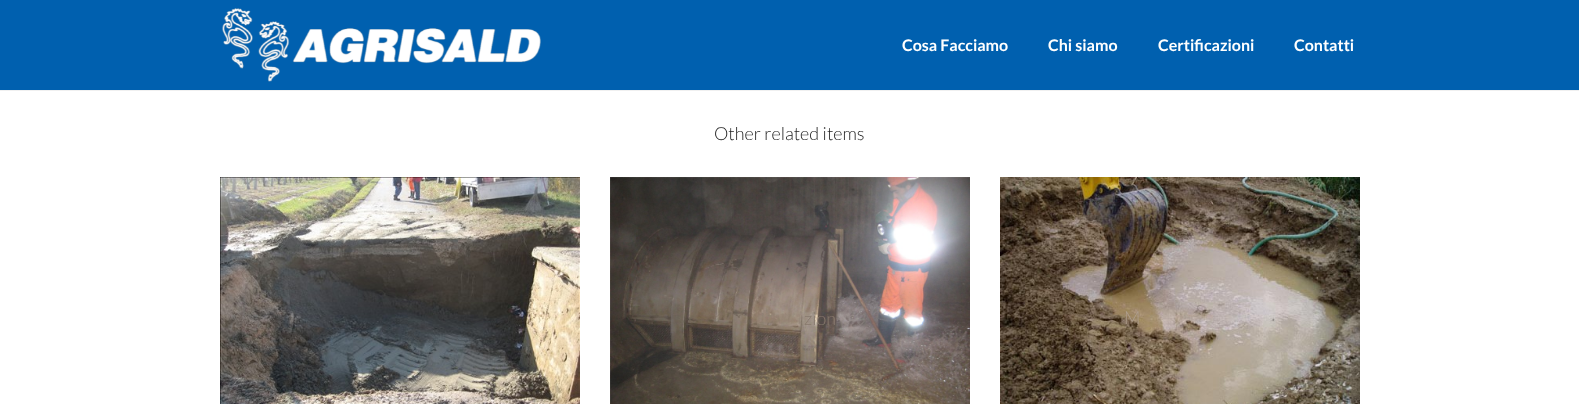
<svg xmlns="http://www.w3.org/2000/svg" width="1579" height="404">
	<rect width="100%" height="100%" fill="#FFFFFF" />
	<rect x="0" y="90" width="1579" height="1" fill="#F0F0F0" />
	<rect x="0" y="0" width="1579" height="90" fill="#0060AF" />
	<image x="222" y="8" width="319" height="74" href="assets/img1.png" />
	<g font-family="Lato" font-size="16" font-weight="700" fill="#FFFFFF">
		<text x="902" y="51">Cosa Facciamo</text>
		<text x="1048" y="51">Chi siamo</text>
		<text x="1158" y="51">Certificazioni</text>
		<text x="1294" y="51">Contatti</text>
	</g>
	<text x="714" y="140" font-family="Lato" font-size="18" font-weight="300" fill="#1C1C1C">Other related items</text>
	<image x="220" y="177" width="360" height="227" href="assets/img2.png" />
	<image x="610" y="177" width="360" height="227" href="assets/img3.png" />
	<text x="804" y="325" font-family="Lato" font-size="18" font-weight="300" fill="#887A6E">zion</text>
	<image x="1000" y="177" width="360" height="227" href="assets/img4.png" />
	<text x="1124" y="324" font-family="Lato" font-size="18" font-weight="300" fill="#AE9E8E">M</text>
</svg>
